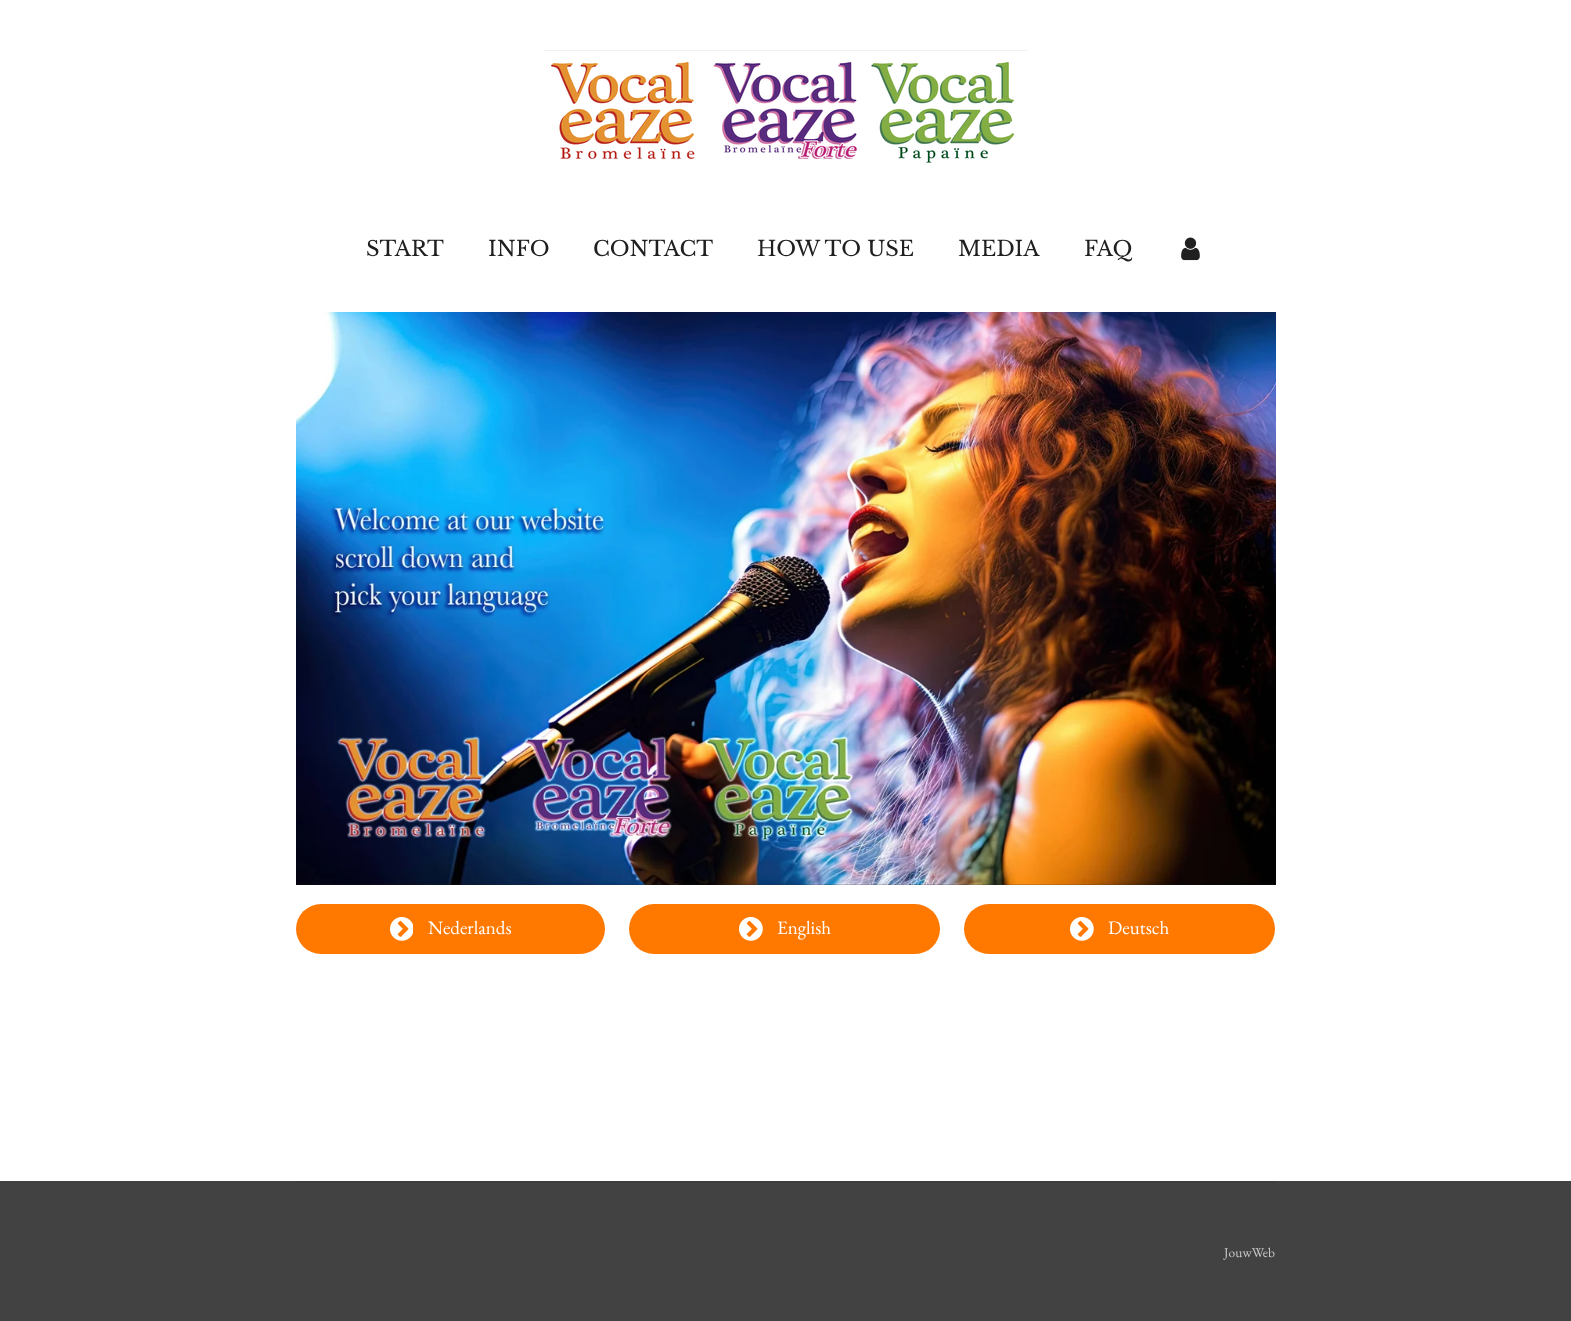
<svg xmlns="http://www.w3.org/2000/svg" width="1571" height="1321">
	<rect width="100%" height="100%" fill="#FFFFFF" />
	<image x="544" y="50" width="483" height="113" href="assets/img1.png" />
	<g font-family="Libre Baskerville" font-size="21" fill="#202020">
		<text x="366" y="256">START</text>
		<text x="488" y="256">INFO</text>
		<text x="593" y="256">CONTACT</text>
		<text x="757" y="256">HOW TO USE</text>
		<text x="958" y="256">MEDIA</text>
		<text x="1084" y="256">FAQ</text>
	</g>
	<image x="1181" y="237" width="19" height="24" href="assets/img2.png" />
	<image x="296" y="312" width="980" height="573" href="assets/img3.png" />
	<rect x="296" y="904" width="309" height="50" rx="25" fill="#FF7900" />
	<image x="390" y="917" width="23" height="24" href="assets/img4.png" />
	<text x="428" y="934" font-family="EB Garamond" font-size="19" fill="#FFFFFF">Nederlands</text>
	<rect x="629" y="904" width="311" height="50" rx="25" fill="#FF7900" />
	<image x="739" y="917" width="24" height="24" href="assets/img5.png" />
	<text x="777" y="934" font-family="EB Garamond" font-size="19" fill="#FFFFFF">English</text>
	<rect x="964" y="904" width="311" height="50" rx="25" fill="#FF7900" />
	<image x="1070" y="917" width="24" height="24" href="assets/img5.png" />
	<text x="1108" y="934" font-family="EB Garamond" font-size="19" fill="#FFFFFF">Deutsch</text>
	<rect x="0" y="1181" width="1571" height="140" fill="#424242" />
	<rect x="296" y="1181" width="980" height="2" fill="#3D3D3D" />
	<text x="1224" y="1257" font-family="EB Garamond" font-size="13.5" fill="#CECECE">JouwWeb</text>
</svg>
